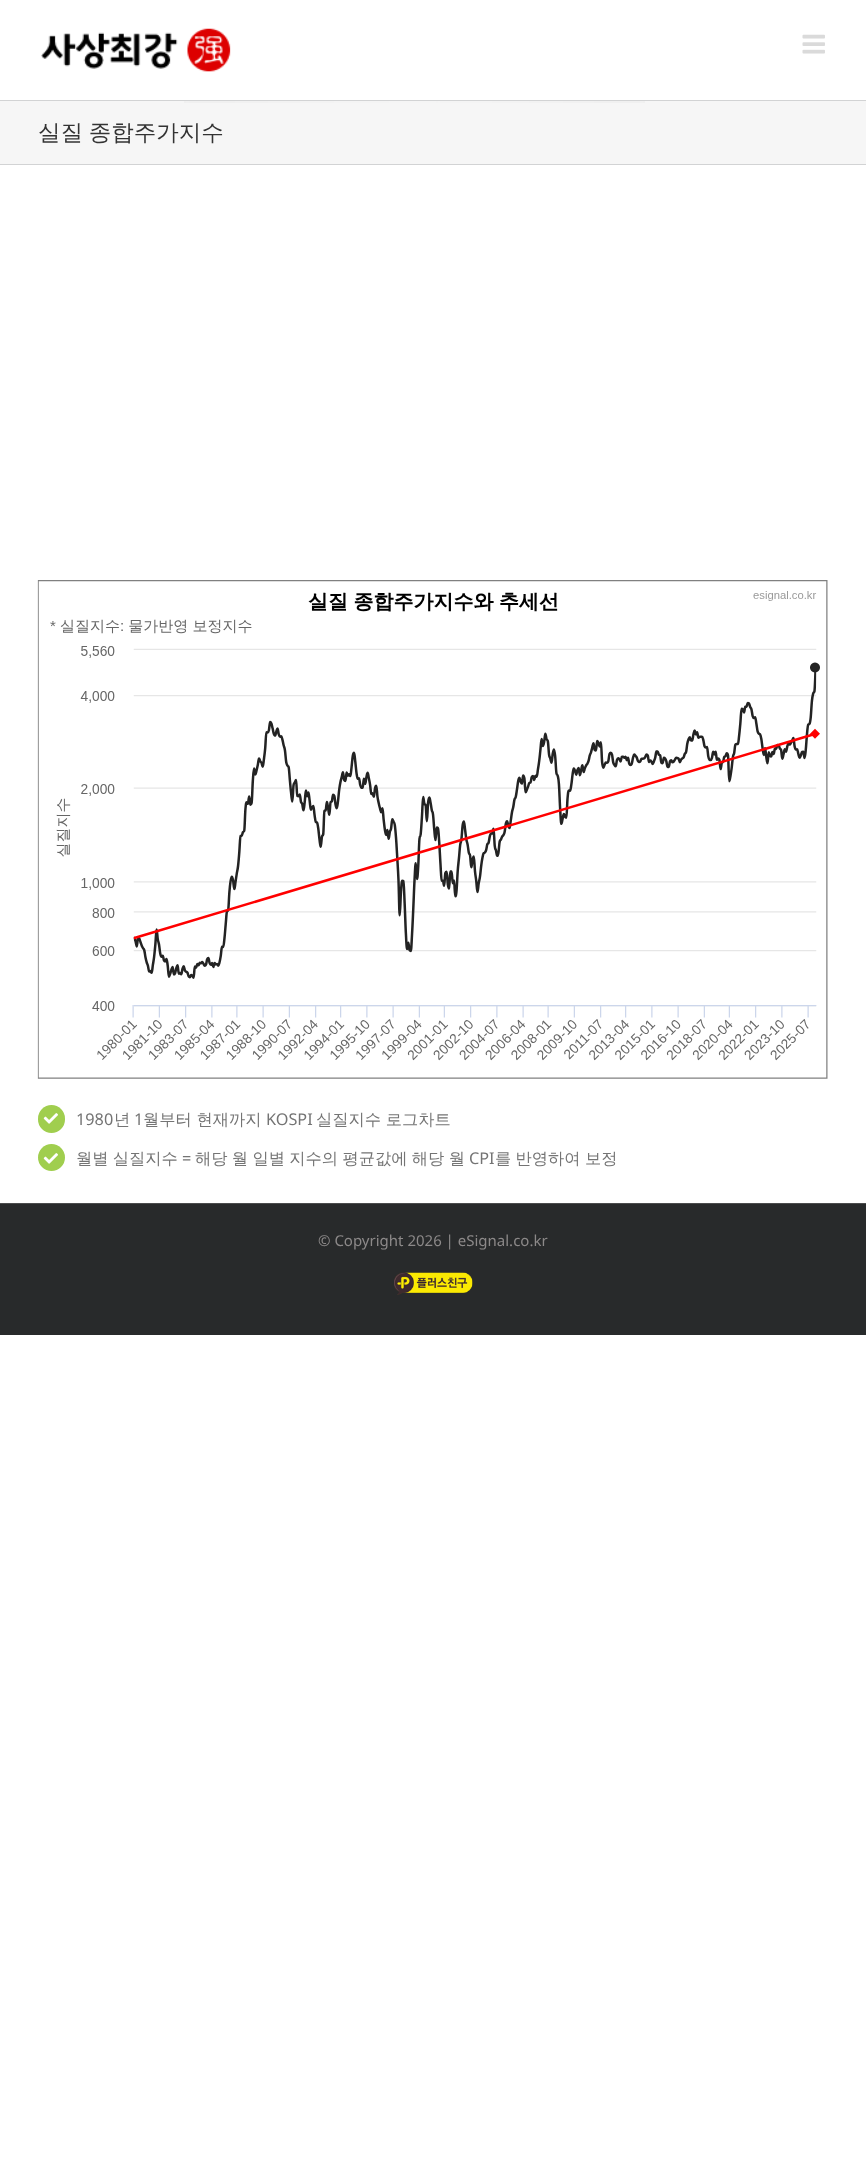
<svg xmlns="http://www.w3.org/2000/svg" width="866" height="2162">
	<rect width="100%" height="100%" fill="#FFFFFF" />
	<image x="41" y="28" width="190" height="44" href="assets/img1.png" />
	<image x="802" y="34" width="23" height="20" href="assets/img2.png" />
	<rect x="0" y="101" width="866" height="63" fill="#F6F6F6" />
	<image x="184" y="101" width="461" height="2" href="assets/img3.png" />
	<rect x="0" y="100" width="866" height="1" fill="#D2D3D4" />
	<rect x="0" y="164" width="866" height="1" fill="#D2D3D4" />
	<text x="38" y="140" word-spacing="-1" font-family="WenQuanYi Zen Hei" font-size="22.5" font-weight="500" fill="#333333">실질 종합주가지수</text>
	<image x="37" y="580" width="791" height="499" href="assets/img4.png" />
	<rect x="38" y="1105" width="27" height="28" rx="13.5" fill="#A0CE4E" />
	<image x="43" y="1113" width="15" height="11" href="assets/img5.png" />
	<text x="76" y="1125" font-family="Noto Sans" font-size="16.25" fill="#747474">1980</text>
	<text x="114" y="1125" font-family="WenQuanYi Zen Hei" font-size="16.25" font-weight="500" fill="#747474">년</text>
	<text x="134" y="1125" font-family="Noto Sans" font-size="16.25" fill="#747474">1</text>
	<text x="143" y="1125" font-family="WenQuanYi Zen Hei" font-size="16.25" font-weight="500" fill="#747474">월부터 현재까지</text>
	<text x="266" y="1125" font-family="Noto Sans" font-size="16.25" fill="#747474">KOSPI</text>
	<text x="316" y="1125" font-family="WenQuanYi Zen Hei" font-size="16.25" font-weight="500" fill="#747474">실질지수 로그차트</text>
	<circle cx="51.5" cy="1157.5" r="13.5" fill="#A0CE4E" />
	<image x="43" y="1153" width="15" height="11" href="assets/img5.png" />
	<text x="76" y="1164" word-spacing="-0.5" font-family="WenQuanYi Zen Hei" font-size="16.25" font-weight="500" fill="#747474">월별 실질지수</text>
	<text x="182" y="1164" font-family="Noto Sans" font-size="16.25" fill="#747474">=</text>
	<text x="195" y="1164" word-spacing="-0.5" font-family="WenQuanYi Zen Hei" font-size="16.25" font-weight="500" fill="#747474">해당 월 일별 지수의 평균값에 해당 월</text>
	<text x="469" y="1164" font-family="Noto Sans" font-size="16.25" fill="#747474">CPI</text>
	<text x="495" y="1164" word-spacing="-0.5" font-family="WenQuanYi Zen Hei" font-size="16.25" font-weight="500" fill="#747474">를 반영하여 보정</text>
	<rect x="0" y="1204" width="866" height="131" fill="#282A2B" />
	<rect x="0" y="1203" width="866" height="1" fill="#4B4C4D" />
	<text x="318" y="1246" font-family="Noto Sans" font-size="15" fill="#8C8989">© Copyright 2026 | eSignal.co.kr</text>
	<image x="394" y="1272" width="79" height="23" href="assets/img6.png" />
</svg>
